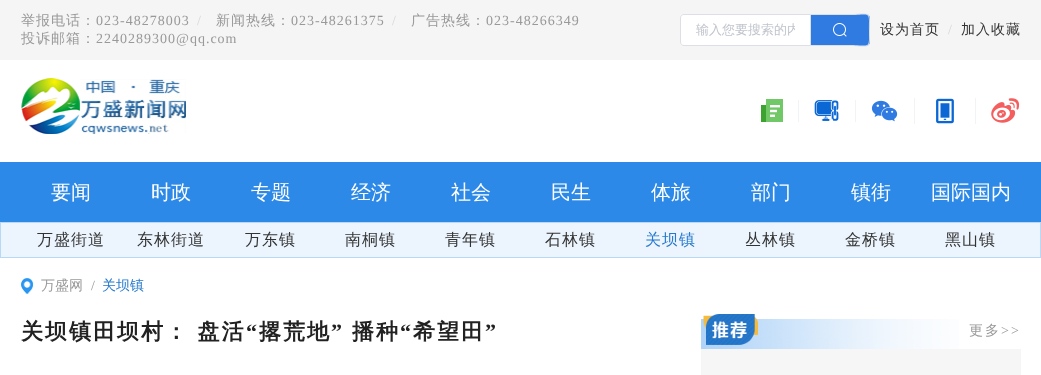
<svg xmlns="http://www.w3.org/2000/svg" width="1041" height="375">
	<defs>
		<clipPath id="clip1"><rect x="696" y="21" width="99" height="18" /></clipPath>
	</defs>
	<rect width="100%" height="100%" fill="#FFFFFF" />
	<rect x="0" y="0" width="1041" height="60" fill="#F5F5F5" />
	<text x="21" y="25" font-family="WenQuanYi Zen Hei" font-size="14" font-weight="500" letter-spacing="1" fill="#999999">举报电话：</text>
	<text x="96" y="25" font-family="Liberation Serif" font-size="14" letter-spacing="1" fill="#999999">023-48278003</text>
	<text x="197" y="25" font-family="Liberation Serif" font-size="14" letter-spacing="1" fill="#D7D7D7">/</text>
	<text x="216" y="25" font-family="WenQuanYi Zen Hei" font-size="14" font-weight="500" letter-spacing="1" fill="#999999">新闻热线：</text>
	<text x="291" y="25" font-family="Liberation Serif" font-size="14" letter-spacing="1" fill="#999999">023-48261375</text>
	<text x="392" y="25" font-family="Liberation Serif" font-size="14" letter-spacing="1" fill="#D7D7D7">/</text>
	<text x="411" y="25" font-family="WenQuanYi Zen Hei" font-size="14" font-weight="500" letter-spacing="1" fill="#999999">广告热线：</text>
	<text x="486" y="25" font-family="Liberation Serif" font-size="14" letter-spacing="1" fill="#999999">023-48266349</text>
	<text x="21" y="43" font-family="WenQuanYi Zen Hei" font-size="14" font-weight="500" letter-spacing="1" fill="#999999">投诉邮箱：</text>
	<text x="96" y="43" font-family="Liberation Serif" font-size="14" letter-spacing="1" fill="#999999">2240289300@qq.com</text>
	<path d="M684 14.5H810.5V45.5H684C682 45.5 680.5 44 680.5 42V18C680.5 16 682 14.5 684 14.5Z" fill="#FFFFFF" stroke="#DCDFE6" />
	<g clip-path="url(#clip1)">
		<text x="696" y="34" font-family="WenQuanYi Zen Hei" font-size="13" font-weight="500" fill="#C0C4CC">输入您要搜索的内</text>
	</g>
	<path d="M811 14H866C868 14 870 16 870 18V42C870 44 868 46 866 46H811Z" fill="#307BE2" />
	<path d="M811 14H848C871 14 870 9 870 30C870 51 871 46 848 46H811ZM811 15H848C871 15 869 10 869 30C869 50 871 45 848 45H811Z" fill="#DCDFE6" fill-rule="evenodd" />
	<image x="833" y="23" width="14" height="14" href="assets/img1.png" />
	<text x="880" y="34" font-family="WenQuanYi Zen Hei" font-size="14" font-weight="500" letter-spacing="1" fill="#333333">设为首页</text>
	<text x="948" y="34" font-family="Liberation Serif" font-size="14" letter-spacing="1" fill="#D7D7D7">/</text>
	<text x="961" y="34" font-family="WenQuanYi Zen Hei" font-size="14" font-weight="500" letter-spacing="1" fill="#333333">加入收藏</text>
	<image x="21" y="78" width="165" height="56" href="assets/img2.png" />
	<image x="761" y="99" width="22" height="23" href="assets/img3.png" />
	<rect x="798" y="100" width="1" height="22" fill="#F1F4F7" />
	<image x="814" y="100" width="25" height="21" href="assets/img4.png" />
	<rect x="855" y="100" width="1" height="22" fill="#F1F4F7" />
	<image x="871" y="100" width="27" height="22" href="assets/img5.png" />
	<rect x="914" y="98" width="1" height="26" fill="#F1F4F7" />
	<image x="936" y="98" width="18" height="26" href="assets/img6.png" />
	<rect x="975" y="98" width="1" height="26" fill="#F1F4F7" />
	<image x="991" y="98" width="29" height="25" href="assets/img7.png" />
	<rect x="0" y="162" width="1041" height="60" fill="#2C89E8" />
	<g font-family="WenQuanYi Zen Hei" font-size="20" font-weight="500" fill="#FFFFFF">
		<text x="51" y="199">要闻</text>
		<text x="151" y="199">时政</text>
		<text x="251" y="199">专题</text>
		<text x="351" y="199">经济</text>
		<text x="451" y="199">社会</text>
		<text x="551" y="199">民生</text>
		<text x="651" y="199">体旅</text>
		<text x="751" y="199">部门</text>
		<text x="851" y="199">镇街</text>
		<text x="931" y="199">国际国内</text>
	</g>
	<rect x="0.5" y="222.5" width="1040" height="35" fill="#ECF5FE" stroke="#B9D7F6" />
	<g font-family="WenQuanYi Zen Hei" font-size="16" font-weight="500" letter-spacing="1" fill="#333333">
		<text x="37" y="245">万盛街道</text>
		<text x="137" y="245">东林街道</text>
		<text x="245" y="245">万东镇</text>
		<text x="345" y="245">南桐镇</text>
		<text x="445" y="245">青年镇</text>
		<text x="545" y="245">石林镇</text>
	</g>
	<text x="645" y="245" font-family="WenQuanYi Zen Hei" font-size="16" font-weight="500" letter-spacing="1" fill="#2679CE">关坝镇</text>
	<g font-family="WenQuanYi Zen Hei" font-size="16" font-weight="500" letter-spacing="1" fill="#333333">
		<text x="745" y="245">丛林镇</text>
		<text x="845" y="245">金桥镇</text>
		<text x="945" y="245">黑山镇</text>
	</g>
	<image x="21" y="278" width="13" height="16" href="assets/img8.png" />
	<text x="41" y="290" font-family="WenQuanYi Zen Hei" font-size="14" font-weight="500" fill="#999999">万盛网</text>
	<text x="91" y="290" font-family="Liberation Serif" font-size="14" fill="#999999">/</text>
	<text x="102" y="290" font-family="WenQuanYi Zen Hei" font-size="14" font-weight="500" fill="#2679CE">关坝镇</text>
	<text x="21" y="339" font-family="WenQuanYi Zen Hei" font-size="22" font-weight="700" letter-spacing="2" fill="#222222">关坝镇田坝村： 盘活</text>
	<text x="246" y="339" font-family="Liberation Serif" font-size="22" font-weight="700" letter-spacing="2" fill="#222222">“</text>
	<text x="259" y="339" font-family="WenQuanYi Zen Hei" font-size="22" font-weight="700" letter-spacing="2" fill="#222222">撂荒地</text>
	<text x="331" y="339" font-family="Liberation Serif" font-size="22" font-weight="700" letter-spacing="2" fill="#222222">”</text>
	<text x="352" y="339" font-family="WenQuanYi Zen Hei" font-size="22" font-weight="700" letter-spacing="2" fill="#222222">播种</text>
	<text x="400" y="339" font-family="Liberation Serif" font-size="22" font-weight="700" letter-spacing="2" fill="#222222">“</text>
	<text x="413" y="339" font-family="WenQuanYi Zen Hei" font-size="22" font-weight="700" letter-spacing="2" fill="#222222">希望田</text>
	<text x="485" y="339" font-family="Liberation Serif" font-size="22" font-weight="700" letter-spacing="2" fill="#222222">”</text>
	<image x="701" y="314" width="258" height="35" href="assets/img9.png" />
	<text x="969" y="335" font-family="WenQuanYi Zen Hei" font-size="14" font-weight="500" letter-spacing="2" fill="#999999">更多</text>
	<text x="1001" y="335" font-family="Liberation Serif" font-size="14" letter-spacing="2" fill="#999999">&gt;&gt;</text>
	<rect x="701" y="349" width="320" height="26" fill="#F6F6F6" />
</svg>
